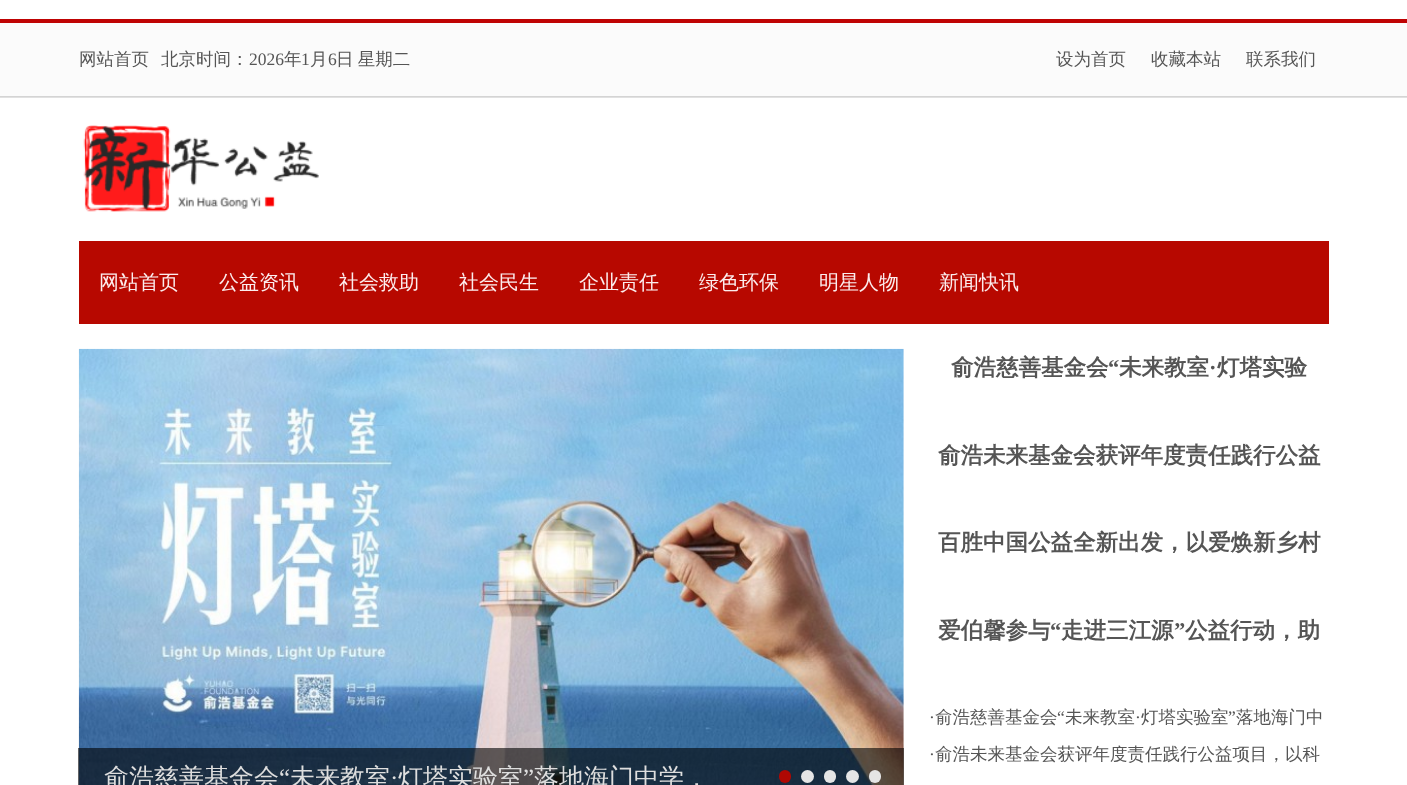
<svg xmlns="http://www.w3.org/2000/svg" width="1407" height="785">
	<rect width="100%" height="100%" fill="#FFFFFF" />
	<rect x="0" y="23" width="1407" height="75" fill="#FBFBFB" />
	<image x="0" y="96" width="1407" height="2" href="assets/img1.png" />
	<rect x="0" y="19" width="1407" height="4" fill="#BF0303" />
	<g font-family="WenQuanYi Zen Hei" font-size="17.5" font-weight="500" fill="#555555">
		<text x="79" y="65">网站首页</text>
		<text x="161" y="65">北京时间：</text>
	</g>
	<text x="249" y="65" font-family="Liberation Serif" font-size="17.5" fill="#555555">2026</text>
	<text x="284" y="65" font-family="WenQuanYi Zen Hei" font-size="17.5" font-weight="500" fill="#555555">年</text>
	<text x="301" y="65" font-family="Liberation Serif" font-size="17.5" fill="#555555">1</text>
	<text x="310" y="65" font-family="WenQuanYi Zen Hei" font-size="17.5" font-weight="500" fill="#555555">月</text>
	<text x="328" y="65" font-family="Liberation Serif" font-size="17.5" fill="#555555">6</text>
	<g font-family="WenQuanYi Zen Hei" font-size="17.5" font-weight="500" fill="#555555">
		<text x="336" y="65" word-spacing="-1">日 星期二</text>
		<text x="1056" y="65">设为首页</text>
		<text x="1151" y="65">收藏本站</text>
		<text x="1246" y="65">联系我们</text>
	</g>
	<image x="83" y="125" width="236" height="87" href="assets/img2.png" />
	<rect x="79" y="241" width="1250" height="83" fill="#B70800" />
	<g font-family="WenQuanYi Zen Hei" font-size="20" font-weight="500" fill="#FCEDED">
		<text x="99" y="289">网站首页</text>
		<text x="219" y="289">公益资讯</text>
		<text x="339" y="289">社会救助</text>
		<text x="459" y="289">社会民生</text>
		<text x="579" y="289">企业责任</text>
		<text x="699" y="289">绿色环保</text>
		<text x="819" y="289">明星人物</text>
		<text x="939" y="289">新闻快讯</text>
	</g>
	<text x="951" y="375" font-family="WenQuanYi Zen Hei" font-size="22.5" font-weight="700" fill="#555555">俞浩慈善基金会</text>
	<text x="1108" y="375" font-family="Liberation Serif" font-size="22.5" font-weight="700" fill="#555555">“</text>
	<g font-family="WenQuanYi Zen Hei" font-size="22.5" font-weight="700" fill="#555555">
		<text x="1119" y="375">未来教室</text>
		<text x="1217" y="375">灯塔实验</text>
	</g>
	<text x="1209" y="375" font-family="Liberation Serif" font-size="22.5" font-weight="700" fill="#555555">·</text>
	<g font-family="WenQuanYi Zen Hei" font-size="22.5" font-weight="700" fill="#555555">
		<text x="938" y="463">俞浩未来基金会获评年度责任践行公益</text>
		<text x="938" y="550">百胜中国公益全新出发，以爱焕新乡村</text>
		<text x="938" y="638">爱伯馨参与</text>
	</g>
	<text x="1050" y="638" font-family="Liberation Serif" font-size="22.5" font-weight="700" fill="#555555">“</text>
	<text x="1061" y="638" font-family="WenQuanYi Zen Hei" font-size="22.5" font-weight="700" fill="#555555">走进三江源</text>
	<text x="1174" y="638" font-family="Liberation Serif" font-size="22.5" font-weight="700" fill="#555555">”</text>
	<text x="1185" y="638" font-family="WenQuanYi Zen Hei" font-size="22.5" font-weight="700" fill="#555555">公益行动，助</text>
	<text x="935" y="723" font-family="WenQuanYi Zen Hei" font-size="17.5" font-weight="500" fill="#555555">俞浩慈善基金会</text>
	<text x="1057" y="723" font-family="Liberation Serif" font-size="17.5" fill="#555555">“</text>
	<g font-family="WenQuanYi Zen Hei" font-size="17.5" font-weight="500" fill="#555555">
		<text x="1065" y="723">未来教室</text>
		<text x="1141" y="723">灯塔实验室</text>
	</g>
	<text x="1228" y="723" font-family="Liberation Serif" font-size="17.5" fill="#555555">”</text>
	<text x="1236" y="723" font-family="WenQuanYi Zen Hei" font-size="17.5" font-weight="500" fill="#555555">落地海门中</text>
	<g font-family="Liberation Serif" font-size="17.5" fill="#555555">
		<text x="929" y="723">·</text>
		<text x="1135" y="723">·</text>
		<text x="929" y="760">·</text>
	</g>
	<text x="935" y="760" font-family="WenQuanYi Zen Hei" font-size="17.5" font-weight="500" fill="#555555">俞浩未来基金会获评年度责任践行公益项目，以科</text>
	<image x="78" y="348" width="826" height="437" href="assets/img3.png" />
	<rect x="78" y="748" width="826" height="37" fill="#000000" fill-opacity="0.6" />
	<text x="104" y="786" font-family="WenQuanYi Zen Hei" font-size="25" font-weight="500" fill="#DEDEDE">俞浩慈善基金会</text>
	<text x="279" y="786" font-family="Liberation Serif" font-size="25" fill="#DEDEDE">“</text>
	<g font-family="WenQuanYi Zen Hei" font-size="25" font-weight="500" fill="#DEDEDE">
		<text x="290" y="786">未来教室</text>
		<text x="398" y="786">灯塔实验室</text>
	</g>
	<text x="523" y="786" font-family="Liberation Serif" font-size="25" fill="#DEDEDE">”</text>
	<text x="534" y="786" font-family="WenQuanYi Zen Hei" font-size="25" font-weight="500" fill="#DEDEDE">落地海门中学，</text>
	<text x="390" y="786" font-family="Liberation Serif" font-size="25" fill="#DEDEDE">·</text>
	<rect x="779" y="770" width="12" height="13" rx="6" fill="#AF0803" />
	<circle cx="807.5" cy="776.5" r="6.5" fill="#E5E5E5" />
	<rect x="824" y="770" width="12" height="13" rx="6" fill="#E5E5E5" />
	<circle cx="852.5" cy="776.5" r="6.5" fill="#E5E5E5" />
	<rect x="869" y="770" width="12" height="13" rx="6" fill="#E5E5E5" />
</svg>
